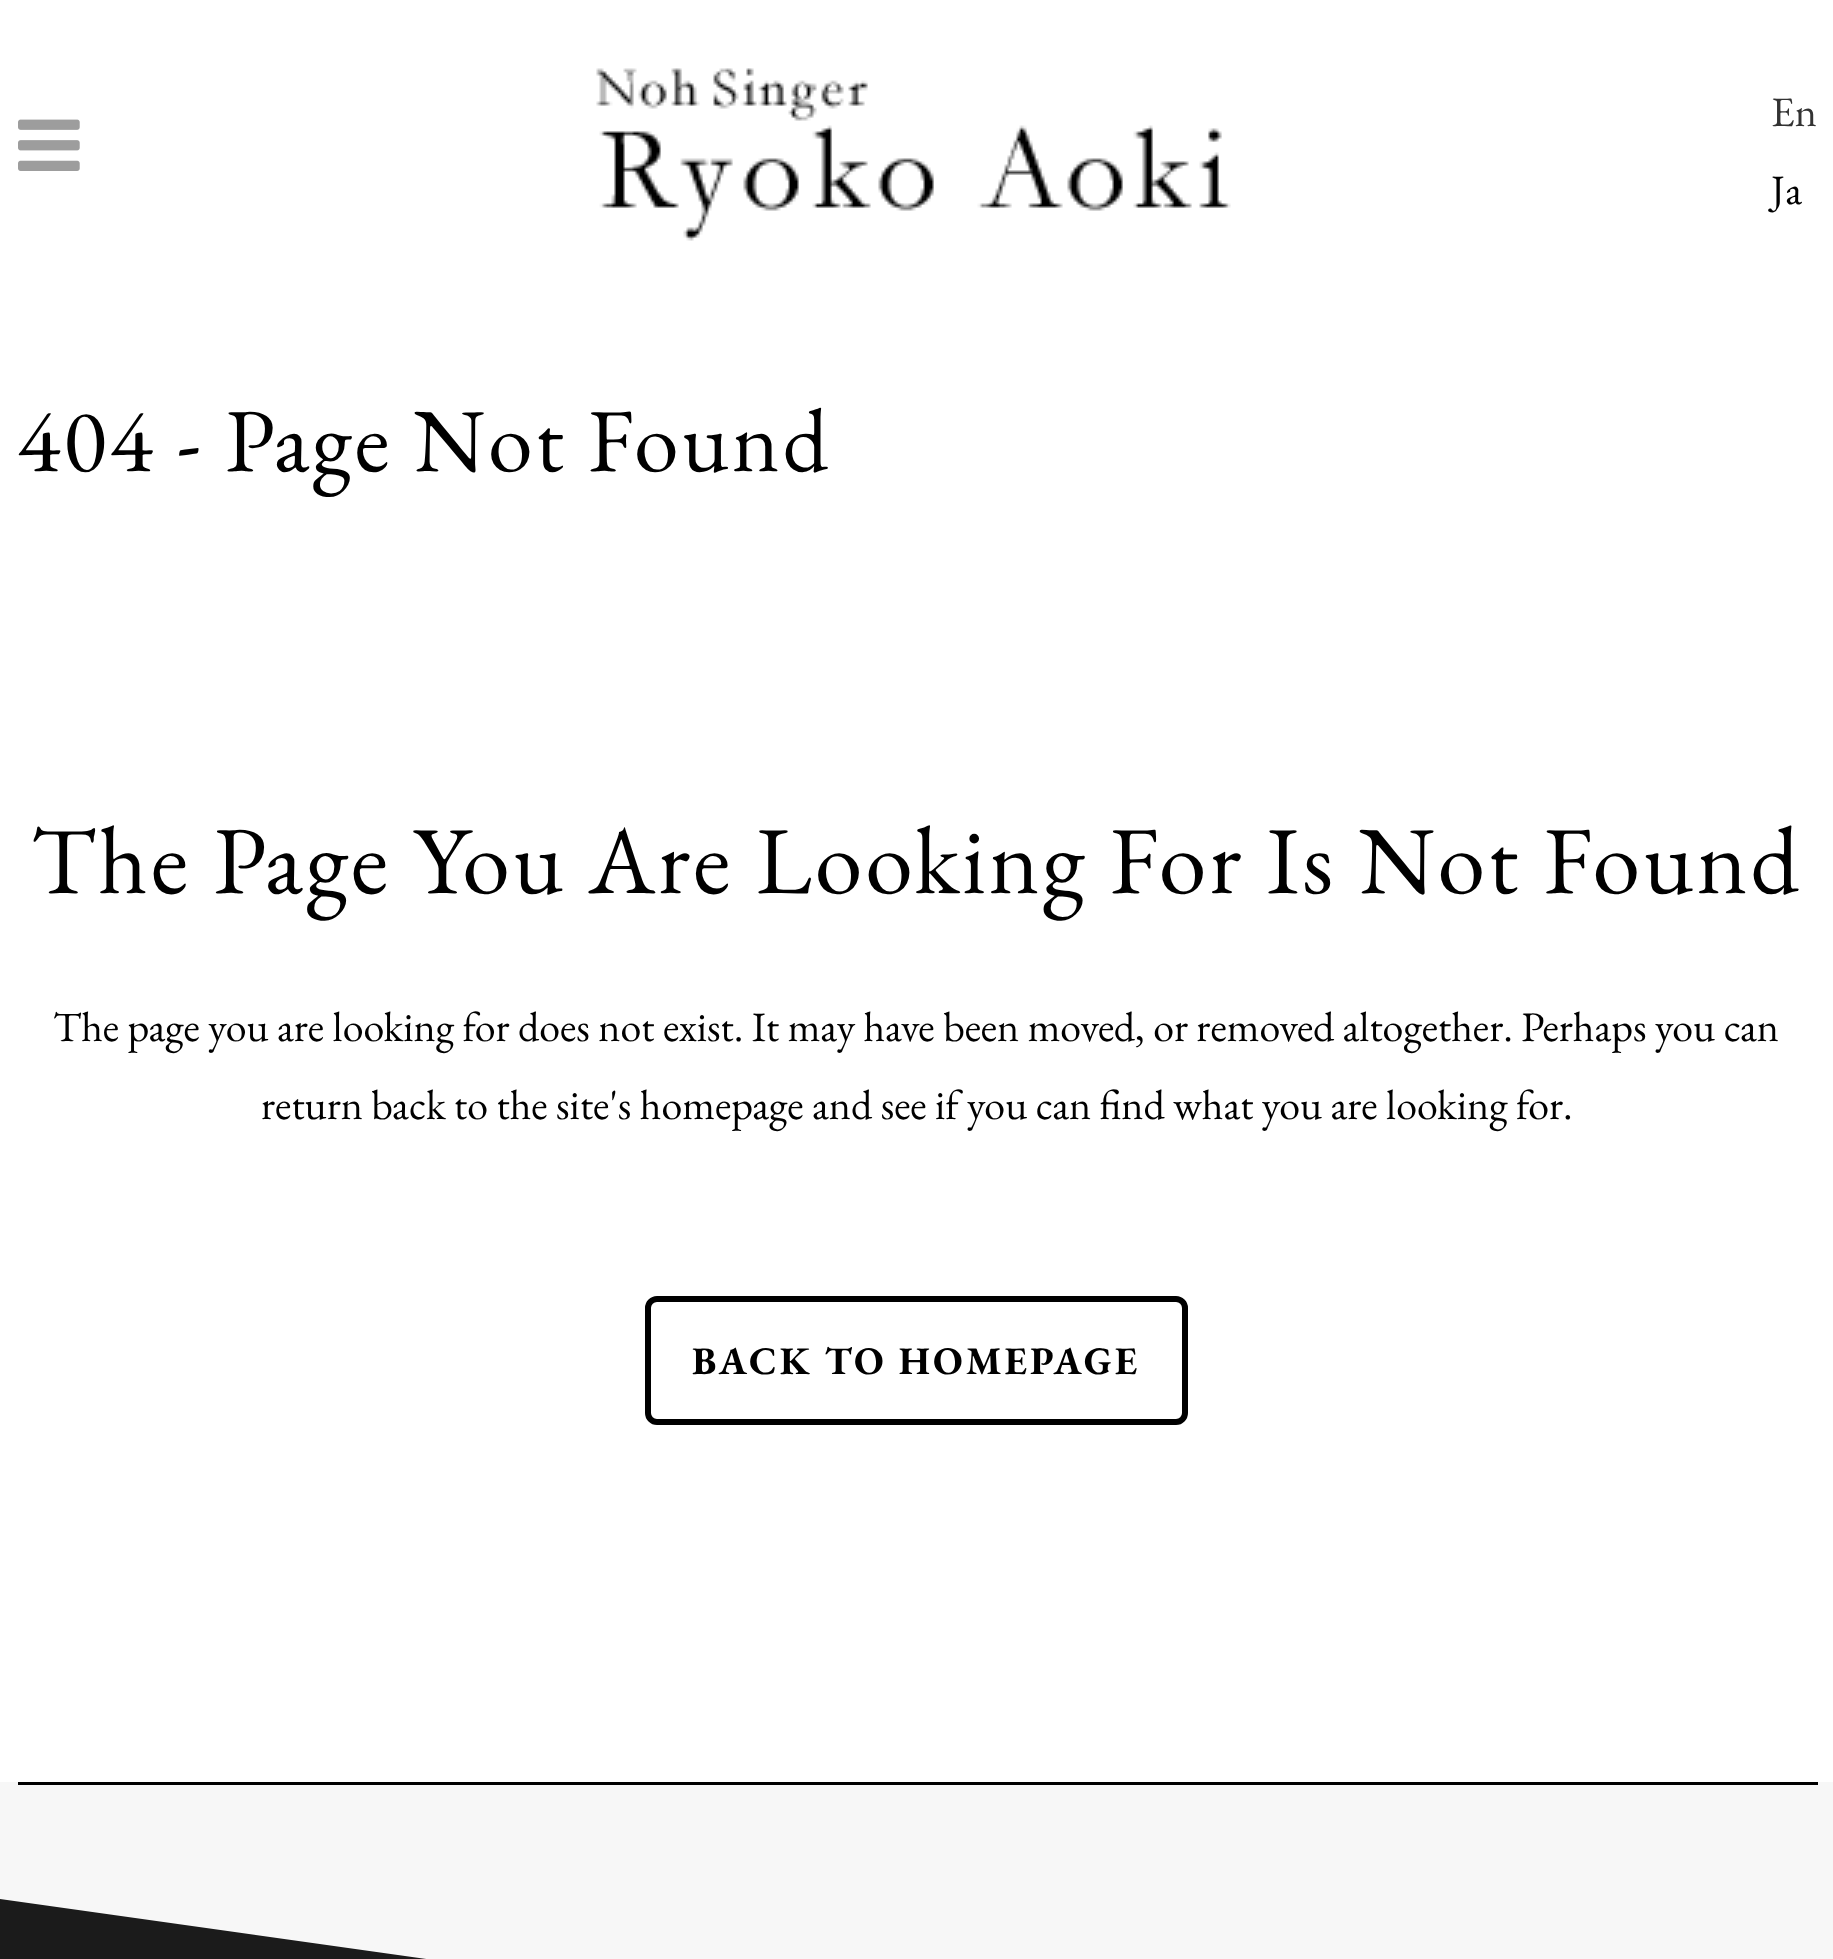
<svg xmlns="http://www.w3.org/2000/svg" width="1833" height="1959">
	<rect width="100%" height="100%" fill="#FFFFFF" />
	<image x="18" y="119" width="62" height="52" href="assets/img1.png" />
	<image x="596" y="68" width="635" height="173" href="assets/img2.png" />
	<text x="1771" y="126" font-family="EB Garamond" font-size="42" fill="#333333">En</text>
	<text x="1771" y="204" font-family="EB Garamond" font-size="42" fill="#000000">Ja</text>
	<text x="17" y="471" font-family="EB Garamond" font-size="90" letter-spacing="3" fill="#000000">404 - Page Not Found</text>
	<text x="31" y="893" font-family="EB Garamond" font-size="96" letter-spacing="3" fill="#000000">The Page You Are Looking For Is Not Found</text>
	<g font-family="EB Garamond" font-size="42" fill="#000000">
		<text x="53" y="1041">The page you are looking for does not exist. It may have been moved, or removed altogether. Perhaps you can</text>
		<text x="261" y="1119">return back to the site's homepage and see if you can find what you are looking for.</text>
	</g>
	<rect x="648" y="1299" width="537" height="123" rx="9" fill="none" stroke="#000000" stroke-width="6" />
	<text x="692" y="1374" font-family="EB Garamond" font-size="39" font-weight="700" letter-spacing="3" fill="#000000">BACK TO HOMEPAGE</text>
	<rect x="0" y="1782" width="1833" height="177" fill="#F7F7F7" />
	<rect x="18" y="1782" width="1800" height="3" fill="#000000" />
	<path d="M0 1899V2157H1833Z" fill="#1B1B1B" />
</svg>
